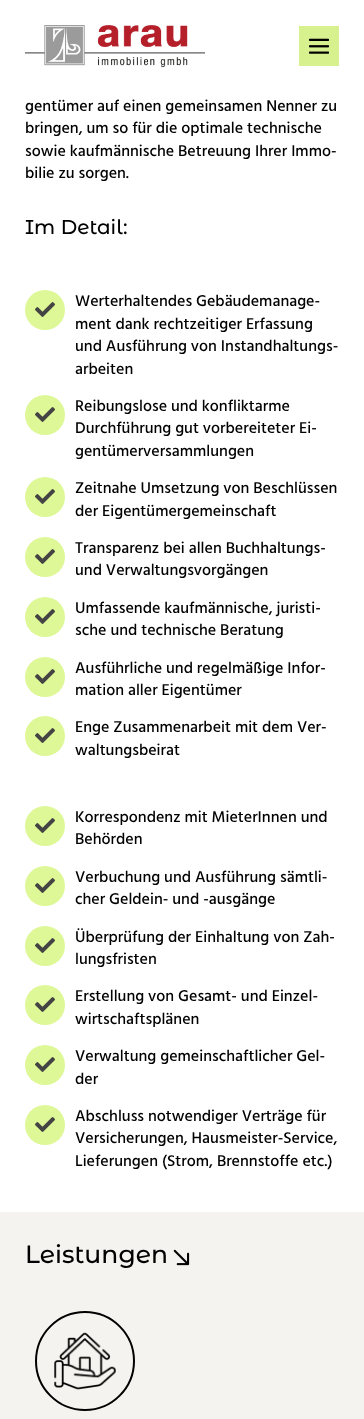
<svg xmlns="http://www.w3.org/2000/svg" width="364" height="1419">
	<rect width="100%" height="100%" fill="#FFFFFF" />
	<image x="25" y="25" width="180" height="43" href="assets/img1.png" />
	<rect x="299" y="26" width="40" height="40" fill="#D7F18F" />
	<image x="309" y="38" width="20" height="16" href="assets/img2.png" />
	<g font-family="Hind Madurai" font-size="16" font-weight="500" fill="#000000">
		<text x="25" y="111">gentümer auf einen gemeinsamen Nenner zu</text>
		<text x="25" y="133">bringen, um so für die optimale technische</text>
		<text x="25" y="156">sowie kaufmännische Betreuung Ihrer Immo-</text>
		<text x="25" y="178">bilie zu sorgen.</text>
	</g>
	<text x="25" y="234" font-family="Montserrat Alternates" font-size="20" font-weight="500" fill="#000000">Im Detail:</text>
	<circle cx="45" cy="310" r="20" fill="#DEF897" />
	<image x="35" y="302" width="20" height="15" href="assets/img3.png" />
	<g font-family="Hind Madurai" font-size="16" font-weight="500" fill="#000000">
		<text x="75" y="306">Werterhaltendes Gebäudemanage-</text>
		<text x="75" y="329">ment dank rechtzeitiger Erfassung</text>
		<text x="75" y="351">und Ausführung von Instandhaltungs-</text>
		<text x="75" y="374">arbeiten</text>
	</g>
	<circle cx="45" cy="415" r="20" fill="#DEF897" />
	<image x="35" y="407" width="20" height="15" href="assets/img3.png" />
	<g font-family="Hind Madurai" font-size="16" font-weight="500" fill="#000000">
		<text x="75" y="411">Reibungslose und konfliktarme</text>
		<text x="75" y="433">Durchführung gut vorbereiteter Ei-</text>
		<text x="75" y="456">gentümerversammlungen</text>
	</g>
	<circle cx="45" cy="497" r="20" fill="#DEF897" />
	<image x="35" y="489" width="20" height="15" href="assets/img3.png" />
	<g font-family="Hind Madurai" font-size="16" font-weight="500" fill="#000000">
		<text x="75" y="493">Zeitnahe Umsetzung von Beschlüssen</text>
		<text x="75" y="516">der Eigentümergemeinschaft</text>
	</g>
	<circle cx="45" cy="557" r="20" fill="#DEF897" />
	<image x="35" y="549" width="20" height="15" href="assets/img3.png" />
	<g font-family="Hind Madurai" font-size="16" font-weight="500" fill="#000000">
		<text x="75" y="553">Transparenz bei allen Buchhaltungs-</text>
		<text x="75" y="575">und Verwaltungsvorgängen</text>
	</g>
	<circle cx="45" cy="617" r="20" fill="#DEF897" />
	<image x="35" y="609" width="20" height="15" href="assets/img3.png" />
	<g font-family="Hind Madurai" font-size="16" font-weight="500" fill="#000000">
		<text x="75" y="613">Umfassende kaufmännische, juristi-</text>
		<text x="75" y="635">sche und technische Beratung</text>
	</g>
	<circle cx="45" cy="677" r="20" fill="#DEF897" />
	<image x="35" y="669" width="20" height="15" href="assets/img3.png" />
	<g font-family="Hind Madurai" font-size="16" font-weight="500" fill="#000000">
		<text x="75" y="673">Ausführliche und regelmäßige Infor-</text>
		<text x="75" y="695">mation aller Eigentümer</text>
	</g>
	<circle cx="45" cy="736" r="20" fill="#DEF897" />
	<image x="35" y="728" width="20" height="15" href="assets/img3.png" />
	<g font-family="Hind Madurai" font-size="16" font-weight="500" fill="#000000">
		<text x="75" y="732">Enge Zusammenarbeit mit dem Ver-</text>
		<text x="75" y="755">waltungsbeirat</text>
	</g>
	<circle cx="45" cy="826" r="20" fill="#DEF897" />
	<image x="35" y="818" width="20" height="15" href="assets/img3.png" />
	<g font-family="Hind Madurai" font-size="16" font-weight="500" fill="#000000">
		<text x="75" y="822">Korrespondenz mit MieterInnen und</text>
		<text x="75" y="844">Behörden</text>
	</g>
	<circle cx="45" cy="886" r="20" fill="#DEF897" />
	<image x="35" y="878" width="20" height="15" href="assets/img3.png" />
	<g font-family="Hind Madurai" font-size="16" font-weight="500" fill="#000000">
		<text x="75" y="882">Verbuchung und Ausführung sämtli-</text>
		<text x="75" y="904">cher Geldein- und -ausgänge</text>
	</g>
	<circle cx="45" cy="946" r="20" fill="#DEF897" />
	<image x="35" y="938" width="20" height="15" href="assets/img3.png" />
	<g font-family="Hind Madurai" font-size="16" font-weight="500" fill="#000000">
		<text x="75" y="942">Überprüfung der Einhaltung von Zah-</text>
		<text x="75" y="964">lungsfristen</text>
	</g>
	<circle cx="45" cy="1005" r="20" fill="#DEF897" />
	<image x="35" y="997" width="20" height="15" href="assets/img3.png" />
	<g font-family="Hind Madurai" font-size="16" font-weight="500" fill="#000000">
		<text x="75" y="1001">Erstellung von Gesamt- und Einzel-</text>
		<text x="75" y="1024">wirtschaftsplänen</text>
	</g>
	<circle cx="45" cy="1065" r="20" fill="#DEF897" />
	<image x="35" y="1057" width="20" height="15" href="assets/img3.png" />
	<g font-family="Hind Madurai" font-size="16" font-weight="500" fill="#000000">
		<text x="75" y="1061">Verwaltung gemeinschaftlicher Gel-</text>
		<text x="75" y="1084">der</text>
	</g>
	<circle cx="45" cy="1125" r="20" fill="#DEF897" />
	<image x="35" y="1117" width="20" height="15" href="assets/img3.png" />
	<g font-family="Hind Madurai" font-size="16" font-weight="500" fill="#000000">
		<text x="75" y="1121">Abschluss notwendiger Verträge für</text>
		<text x="75" y="1143">Versicherungen, Hausmeister-Service,</text>
		<text x="75" y="1166">Lieferungen (Strom, Brennstoffe etc.)</text>
	</g>
	<rect x="0" y="1212" width="364" height="207" fill="#F5F3EF" />
	<text x="25" y="1263" font-family="Montserrat Alternates" font-size="25" font-weight="500" fill="#000000">Leistungen</text>
	<image x="173" y="1249" width="17" height="17" href="assets/img4.png" />
	<circle cx="85" cy="1361" r="49" fill="none" stroke="#000000" stroke-width="2" />
	<image x="54" y="1332" width="62" height="58" href="assets/img5.png" />
</svg>
